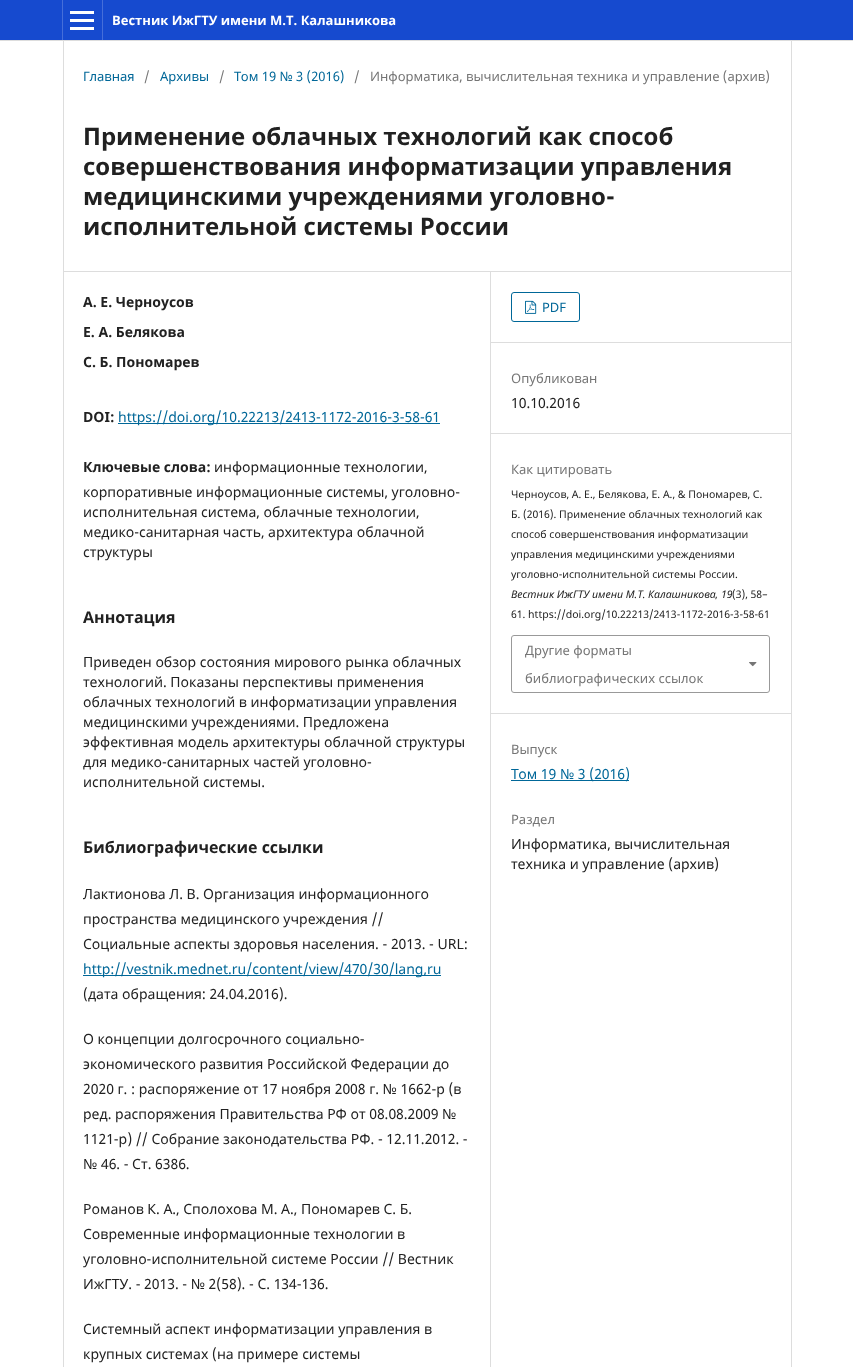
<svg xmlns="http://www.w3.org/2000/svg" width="853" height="1367">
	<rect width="100%" height="100%" fill="#FFFFFF" />
	<rect x="0" y="0" width="853" height="40" fill="#164ACF" />
	<rect x="0" y="40" width="853" height="1" fill="#DDDDDD" />
	<rect x="62" y="0" width="1" height="40" fill="#456ED9" />
	<rect x="102" y="0" width="1" height="40" fill="#456ED9" />
	<rect x="70" y="27" width="24" height="3" fill="#FFFFFF" />
	<rect x="70" y="11" width="24" height="3" fill="#FFFFFF" />
	<rect x="70" y="19" width="24" height="3" fill="#FFFFFF" />
	<text x="112" y="25" font-family="Noto Sans" font-size="13" font-weight="700" fill="#FFFFFF">Вестник ИжГТУ имени М.Т. Калашникова</text>
	<rect x="63" y="271" width="728" height="1" fill="#DDDDDD" />
	<rect x="63" y="41" width="1" height="1326" fill="#DDDDDD" />
	<text x="83" y="81" font-family="Noto Sans" font-size="13" fill="#006798">Главная</text>
	<text x="144" y="81" font-family="Noto Sans" font-size="13" fill="#757575">/</text>
	<text x="160" y="81" font-family="Noto Sans" font-size="13" fill="#006798">Архивы</text>
	<text x="219" y="81" font-family="Noto Sans" font-size="13" fill="#757575">/</text>
	<text x="234" y="81" font-family="Noto Sans" font-size="13" fill="#006798">Том 19 № 3 (2016)</text>
	<g font-family="Noto Sans" font-size="13" fill="#757575">
		<text x="354" y="81">/</text>
		<text x="370" y="81">Информатика, вычислительная техника и управление (архив)</text>
	</g>
	<g font-family="Noto Sans" font-size="24" font-weight="700" fill="#212121">
		<text x="83" y="145">Применение облачных технологий как способ</text>
		<text x="83" y="175">совершенствования информатизации управления</text>
		<text x="83" y="205">медицинскими учреждениями уголовно-</text>
		<text x="83" y="235">исполнительной системы России</text>
	</g>
	<rect x="490" y="272" width="1" height="1095" fill="#DDDDDD" />
	<g font-family="Noto Sans" font-size="14" font-weight="700" fill="#212121">
		<text x="83" y="307">А. Е. Черноусов</text>
		<text x="83" y="337">Е. А. Белякова</text>
		<text x="83" y="367">С. Б. Пономарев</text>
		<text x="83" y="422">DOI:</text>
	</g>
	<rect x="118" y="423" width="322" height="1" fill="#006798" />
	<text x="118" y="422" font-family="Noto Sans" font-size="14" fill="#006798">https://doi.org/10.22213/2413-1172-2016-3-58-61</text>
	<text x="83" y="472" font-family="Noto Sans" font-size="14" font-weight="700" fill="#212121">Ключевые слова:</text>
	<g font-family="Noto Sans" font-size="14" fill="#212121">
		<text x="214" y="472">информационные технологии,</text>
		<text x="83" y="497">корпоративные информационные системы, уголовно-</text>
		<text x="83" y="517">исполнительная система, облачные технологии,</text>
		<text x="83" y="537">медико-санитарная часть, архитектура облачной</text>
		<text x="83" y="557">структуры</text>
	</g>
	<text x="83" y="623" font-family="Noto Sans" font-size="16" font-weight="700" fill="#212121">Аннотация</text>
	<g font-family="Noto Sans" font-size="14" fill="#212121">
		<text x="83" y="667">Приведен обзор состояния мирового рынка облачных</text>
		<text x="83" y="687">технологий. Показаны перспективы применения</text>
		<text x="83" y="707">облачных технологий в информатизации управления</text>
		<text x="83" y="727">медицинскими учреждениями. Предложена</text>
		<text x="83" y="747">эффективная модель архитектуры облачной структуры</text>
		<text x="83" y="767">для медико-санитарных частей уголовно-</text>
		<text x="83" y="787">исполнительной системы.</text>
	</g>
	<text x="83" y="853" font-family="Noto Sans" font-size="16" font-weight="700" fill="#212121">Библиографические ссылки</text>
	<g font-family="Noto Sans" font-size="14" fill="#212121">
		<text x="83" y="899">Лактионова Л. В. Организация информационного</text>
		<text x="83" y="924">пространства медицинского учреждения //</text>
		<text x="83" y="949">Социальные аспекты здоровья населения. - 2013. - URL:</text>
	</g>
	<rect x="83" y="975" width="358" height="1" fill="#006798" />
	<text x="83" y="974" font-family="Noto Sans" font-size="14" fill="#006798">http://vestnik.mednet.ru/content/view/470/30/lang,ru</text>
	<g font-family="Noto Sans" font-size="14" fill="#212121">
		<text x="83" y="999">(дата обращения: 24.04.2016).</text>
		<text x="83" y="1044">О концепции долгосрочного социально-</text>
		<text x="83" y="1069">экономического развития Российской Федерации до</text>
		<text x="83" y="1094">2020 г. : распоряжение от 17 ноября 2008 г. № 1662-р (в</text>
		<text x="83" y="1119">ред. распоряжения Правительства РФ от 08.08.2009 №</text>
		<text x="83" y="1144">1121-р) // Собрание законодательства РФ. - 12.11.2012. -</text>
		<text x="83" y="1169">№ 46. - Ст. 6386.</text>
		<text x="83" y="1214">Романов К. А., Сполохова М. А., Пономарев С. Б.</text>
		<text x="83" y="1239">Современные информационные технологии в</text>
		<text x="83" y="1264">уголовно-исполнительной системе России // Вестник</text>
		<text x="83" y="1289">ИжГТУ. - 2013. - № 2(58). - С. 134-136.</text>
		<text x="83" y="1334">Системный аспект информатизации управления в</text>
		<text x="83" y="1359">крупных системах (на примере системы</text>
	</g>
	<rect x="491" y="342" width="300" height="1" fill="#DDDDDD" />
	<rect x="511.5" y="292.5" width="68" height="29" rx="2.5" fill="none" stroke="#006798" />
	<image x="525" y="300" width="12" height="14" href="assets/img1.png" />
	<text x="542" y="312" font-family="Noto Sans" font-size="13" fill="#006798">PDF</text>
	<rect x="491" y="433" width="300" height="1" fill="#DDDDDD" />
	<text x="511" y="383" font-family="Noto Sans" font-size="13" fill="#757575">Опубликован</text>
	<text x="511" y="408" font-family="Noto Sans" font-size="14" fill="#212121">10.10.2016</text>
	<rect x="491" y="713" width="300" height="1" fill="#DDDDDD" />
	<text x="511" y="474" font-family="Noto Sans" font-size="13" fill="#757575">Как цитировать</text>
	<g font-family="Noto Sans" font-size="10.5" fill="#212121">
		<text x="511" y="498">Черноусов, А. Е., Белякова, Е. А., &amp; Пономарев, С.</text>
		<text x="511" y="518">Б. (2016). Применение облачных технологий как</text>
		<text x="511" y="538">способ совершенствования информатизации</text>
		<text x="511" y="558">управления медицинскими учреждениями</text>
		<text x="511" y="578">уголовно-исполнительной системы России.</text>
	</g>
	<text x="511" y="598" font-family="Noto Sans" font-size="10.5" font-style="italic" fill="#212121">Вестник ИжГТУ имени М.Т. Калашникова</text>
	<text x="715" y="598" font-family="Noto Sans" font-size="10.5" fill="#212121">,</text>
	<text x="721" y="598" font-family="Noto Sans" font-size="10.5" font-style="italic" fill="#212121">19</text>
	<g font-family="Noto Sans" font-size="10.5" fill="#212121">
		<text x="732" y="598">(3), 58–</text>
		<text x="511" y="618">61. https://doi.org/10.22213/2413-1172-2016-3-58-61</text>
	</g>
	<rect x="511.5" y="635.5" width="258" height="57" rx="2.5" fill="none" stroke="#999999" />
	<text x="525" y="655" font-family="Noto Sans" font-size="13" fill="#757575">Другие форматы</text>
	<image x="749" y="662" width="8" height="5" href="assets/img2.png" />
	<g font-family="Noto Sans" font-size="13" fill="#757575">
		<text x="525" y="683">библиографических ссылок</text>
		<text x="511" y="754">Выпуск</text>
	</g>
	<rect x="511" y="780" width="118" height="1" fill="#006798" />
	<text x="511" y="779" font-family="Noto Sans" font-size="14" fill="#006798">Том 19 № 3 (2016)</text>
	<text x="511" y="824" font-family="Noto Sans" font-size="13" fill="#757575">Раздел</text>
	<g font-family="Noto Sans" font-size="14" fill="#212121">
		<text x="511" y="849">Информатика, вычислительная</text>
		<text x="511" y="869">техника и управление (архив)</text>
	</g>
	<rect x="791" y="41" width="1" height="1326" fill="#DDDDDD" />
</svg>
